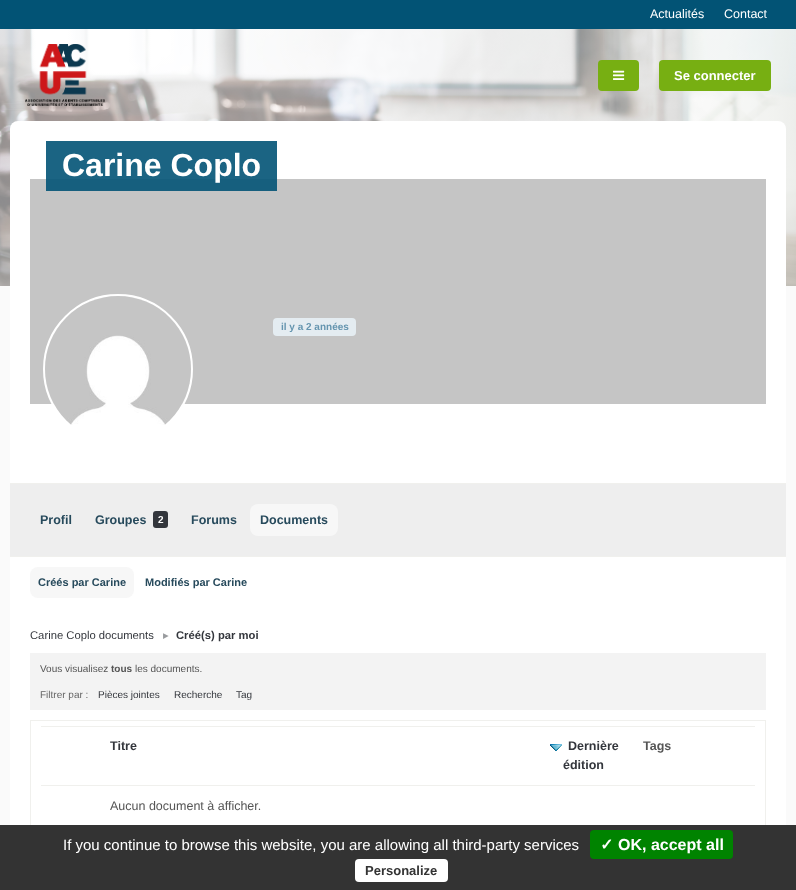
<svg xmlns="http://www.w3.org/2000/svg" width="796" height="890">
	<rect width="100%" height="100%" fill="#F5F5F5" />
	<image x="0" y="29" width="796" height="796" href="assets/img1.png" />
	<rect x="0" y="0" width="796" height="29" fill="#025375" />
	<g font-family="Liberation Sans" font-size="12.5" fill="#FFFFFF">
		<text x="650" y="18">Actualités</text>
		<text x="724" y="18">Contact</text>
	</g>
	<image x="25" y="44" width="80" height="62" href="assets/img2.png" />
	<rect x="598" y="60" width="41" height="31" rx="4" fill="#77AF12" />
	<image x="613" y="70" width="12" height="10" href="assets/img3.png" />
	<rect x="659" y="60" width="112" height="31" rx="4" fill="#77AF12" />
	<text x="674" y="80" font-family="Liberation Sans" font-size="13" font-weight="700" fill="#FFFFFF">Se connecter</text>
	<rect x="10" y="121" width="776" height="732" rx="8" fill="#FFFFFF" />
	<rect x="30" y="179" width="736" height="225" fill="#C5C5C5" />
	<rect x="46" y="141" width="231" height="50" fill="#025375" fill-opacity="0.9" />
	<text x="62" y="176" font-family="Liberation Sans" font-size="32" font-weight="700" fill="#FFFFFF">Carine Coplo</text>
	<circle cx="118" cy="369" r="74" fill="#FFFFFF" fill-opacity="0.8" stroke="#FFFFFF" stroke-width="2" />
	<image x="45" y="296" width="146" height="129" href="assets/img4.png" />
	<rect x="273" y="318" width="83" height="18" rx="4" fill="#E4ECF1" />
	<text x="281" y="330" font-family="Liberation Sans" font-size="10" font-weight="700" fill="#6595AF">il y a 2 années</text>
	<rect x="10" y="484" width="776" height="72" fill="#EEEEEE" />
	<rect x="10" y="483" width="776" height="1" fill="#F0F0ED" />
	<g font-family="Liberation Sans" font-size="12.5" font-weight="700" fill="#274A5C">
		<text x="40" y="524">Profil</text>
		<text x="95" y="524">Groupes</text>
	</g>
	<rect x="153" y="511" width="15" height="17" rx="3" fill="#33363C" />
	<text x="158" y="523" font-family="Liberation Sans" font-size="10" font-weight="700" fill="#FFFFFF">2</text>
	<text x="191" y="524" font-family="Liberation Sans" font-size="12.5" font-weight="700" fill="#274A5C">Forums</text>
	<rect x="250" y="504" width="88" height="32" rx="8" fill="#F7F7F7" />
	<text x="260" y="524" font-family="Liberation Sans" font-size="12.5" font-weight="700" fill="#274A5C">Documents</text>
	<rect x="10" y="556" width="776" height="1" fill="#F0F0ED" />
	<rect x="30" y="567" width="104" height="31" rx="8" fill="#F7F7F7" />
	<g font-family="Liberation Sans" font-size="11" font-weight="700" fill="#274A5C">
		<text x="38" y="586">Créés par Carine</text>
		<text x="145" y="586">Modifiés par Carine</text>
	</g>
	<text x="30" y="639" font-family="Liberation Sans" font-size="11.25" fill="#33363C">Carine Coplo documents</text>
	<text x="163" y="639" font-family="DejaVu Sans" font-size="11.25" fill="#999B9E">▸</text>
	<text x="176" y="639" font-family="Liberation Sans" font-size="11.25" font-weight="700" fill="#33363C">Créé(s) par moi</text>
	<rect x="30" y="653" width="736" height="57" fill="#F3F3F3" />
	<text x="40" y="672" font-family="Liberation Sans" font-size="10" fill="#555555">Vous visualisez</text>
	<text x="111" y="672" font-family="Liberation Sans" font-size="10" font-weight="700" fill="#555555">tous</text>
	<text x="135" y="672" font-family="Liberation Sans" font-size="10" fill="#555555">les documents.</text>
	<text x="40" y="698" font-family="Liberation Sans" font-size="10" fill="#666666">Filtrer par :</text>
	<g font-family="Liberation Sans" font-size="10" fill="#33363C">
		<text x="98" y="698">Pièces jointes</text>
		<text x="174" y="698">Recherche</text>
		<text x="236" y="698">Tag</text>
	</g>
	<rect x="30.5" y="720.5" width="735" height="112" fill="none" stroke="#F0F0ED" />
	<rect x="41" y="726" width="714" height="1" fill="#F0F0ED" />
	<text x="110" y="750" font-family="Liberation Sans" font-size="12.5" font-weight="700" fill="#33363C">Titre</text>
	<image x="550" y="744" width="12" height="7" href="assets/img5.png" />
	<g font-family="Liberation Sans" font-size="12.5" font-weight="700" fill="#33363C">
		<text x="568" y="750">Dernière</text>
		<text x="563" y="769">édition</text>
	</g>
	<text x="643" y="750" font-family="Liberation Sans" font-size="12.5" font-weight="700" fill="#555555">Tags</text>
	<rect x="41" y="785" width="714" height="1" fill="#F0F0ED" />
	<text x="110" y="810" font-family="Liberation Sans" font-size="12.5" fill="#555555">Aucun document à afficher.</text>
	<rect x="0" y="825" width="796" height="65" fill="#333333" />
	<text x="63" y="850" font-family="Liberation Sans" font-size="15" fill="#FFFFFF">If you continue to browse this website, you are allowing all third-party services</text>
	<rect x="590" y="830" width="143" height="29" rx="4" fill="#008300" />
	<text x="600" y="850" font-family="DejaVu Sans" font-size="16" font-weight="700" fill="#FFFFFF">✓</text>
	<text x="618" y="850" font-family="Liberation Sans" font-size="16" font-weight="700" fill="#FFFFFF">OK, accept all</text>
	<rect x="355" y="859" width="93" height="23" rx="4" fill="#FFFFFF" />
	<text x="365" y="875" font-family="Liberation Sans" font-size="13" font-weight="700" fill="#333333">Personalize</text>
</svg>
